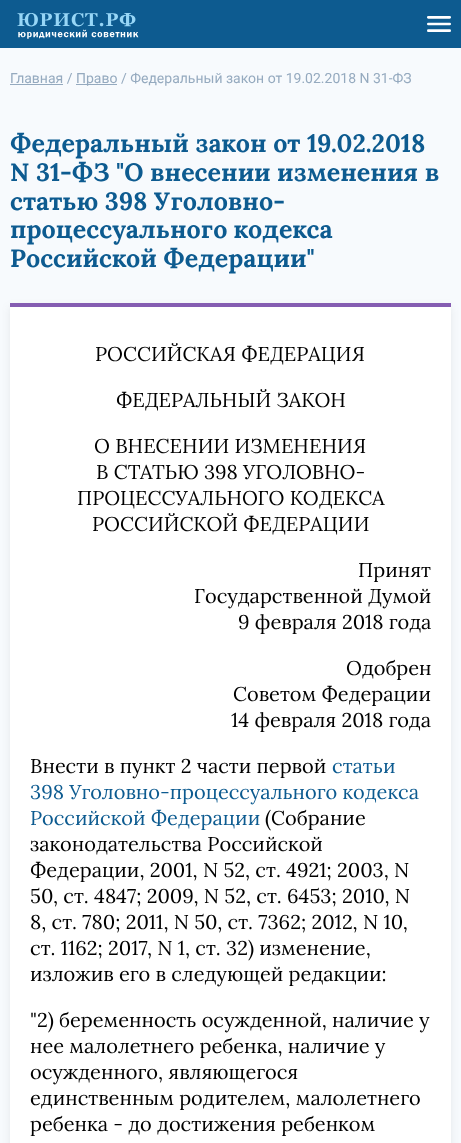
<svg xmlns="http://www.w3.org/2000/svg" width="461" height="1143">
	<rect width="100%" height="100%" fill="#F7FAFD" />
	<rect x="0" y="0" width="461" height="48" fill="#0D5B90" />
	<image x="17" y="13" width="122" height="26" href="assets/img1.png" />
	<image x="427" y="16" width="24" height="16" href="assets/img2.png" />
	<text x="10" y="83" font-family="Roboto" font-size="14" fill="#95AABF">Главная /</text>
	<rect x="10" y="84" width="53" height="1" fill="#95AABF" />
	<rect x="76" y="84" width="41" height="1" fill="#95AABF" />
	<text x="76" y="83" font-family="Roboto" font-size="14" fill="#95AABF">Право / Федеральный закон от 19.02.2018 N 31-ФЗ</text>
	<g font-family="Lora" font-size="25" font-weight="700" fill="#0D5B90">
		<text x="10" y="152">Федеральный закон от 19.02.2018</text>
		<text x="10" y="181">N 31-ФЗ "О внесении изменения в</text>
		<text x="10" y="210">статью 398 Уголовно-</text>
		<text x="10" y="238">процессуального кодекса</text>
		<text x="10" y="267">Российской Федерации"</text>
	</g>
	<rect x="10" y="307" width="441" height="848" fill="#484848" fill-opacity="0.1" filter="blur(4px)" />
	<rect x="10" y="307" width="441" height="836" fill="#FFFFFF" />
	<rect x="10" y="303" width="441" height="4" fill="#855DB2" />
	<g font-family="Lora" font-size="20" fill="#000000">
		<text x="95" y="361">РОССИЙСКАЯ ФЕДЕРАЦИЯ</text>
		<text x="116" y="407">ФЕДЕРАЛЬНЫЙ ЗАКОН</text>
		<text x="94" y="453">О ВНЕСЕНИИ ИЗМЕНЕНИЯ</text>
		<text x="96" y="479">В СТАТЬЮ 398 УГОЛОВНО-</text>
		<text x="77" y="505">ПРОЦЕССУАЛЬНОГО КОДЕКСА</text>
		<text x="92" y="531">РОССИЙСКОЙ ФЕДЕРАЦИИ</text>
		<text x="358" y="577">Принят</text>
		<text x="194" y="603">Государственной Думой</text>
		<text x="238" y="629">9 февраля 2018 года</text>
		<text x="346" y="675">Одобрен</text>
		<text x="233" y="701">Советом Федерации</text>
		<text x="231" y="727">14 февраля 2018 года</text>
		<text x="30" y="773">Внести в пункт 2 части первой</text>
	</g>
	<g font-family="Lora" font-size="20" fill="#0D5B90">
		<text x="332" y="773">статьи</text>
		<text x="30" y="799">398 Уголовно-процессуального кодекса</text>
		<text x="30" y="825">Российской Федерации</text>
	</g>
	<g font-family="Lora" font-size="20" fill="#000000">
		<text x="265" y="825">(Собрание</text>
		<text x="30" y="851">законодательства Российской</text>
		<text x="30" y="877">Федерации, 2001, N 52, ст. 4921; 2003, N</text>
		<text x="30" y="903">50, ст. 4847; 2009, N 52, ст. 6453; 2010, N</text>
		<text x="30" y="929">8, ст. 780; 2011, N 50, ст. 7362; 2012, N 10,</text>
		<text x="30" y="955">ст. 1162; 2017, N 1, ст. 32) изменение,</text>
		<text x="30" y="981">изложив его в следующей редакции:</text>
		<text x="30" y="1027">"2) беременность осужденной, наличие у</text>
		<text x="30" y="1053">нее малолетнего ребенка, наличие у</text>
		<text x="30" y="1079">осужденного, являющегося</text>
		<text x="30" y="1105">единственным родителем, малолетнего</text>
		<text x="30" y="1131">ребенка - до достижения ребенком</text>
	</g>
</svg>
